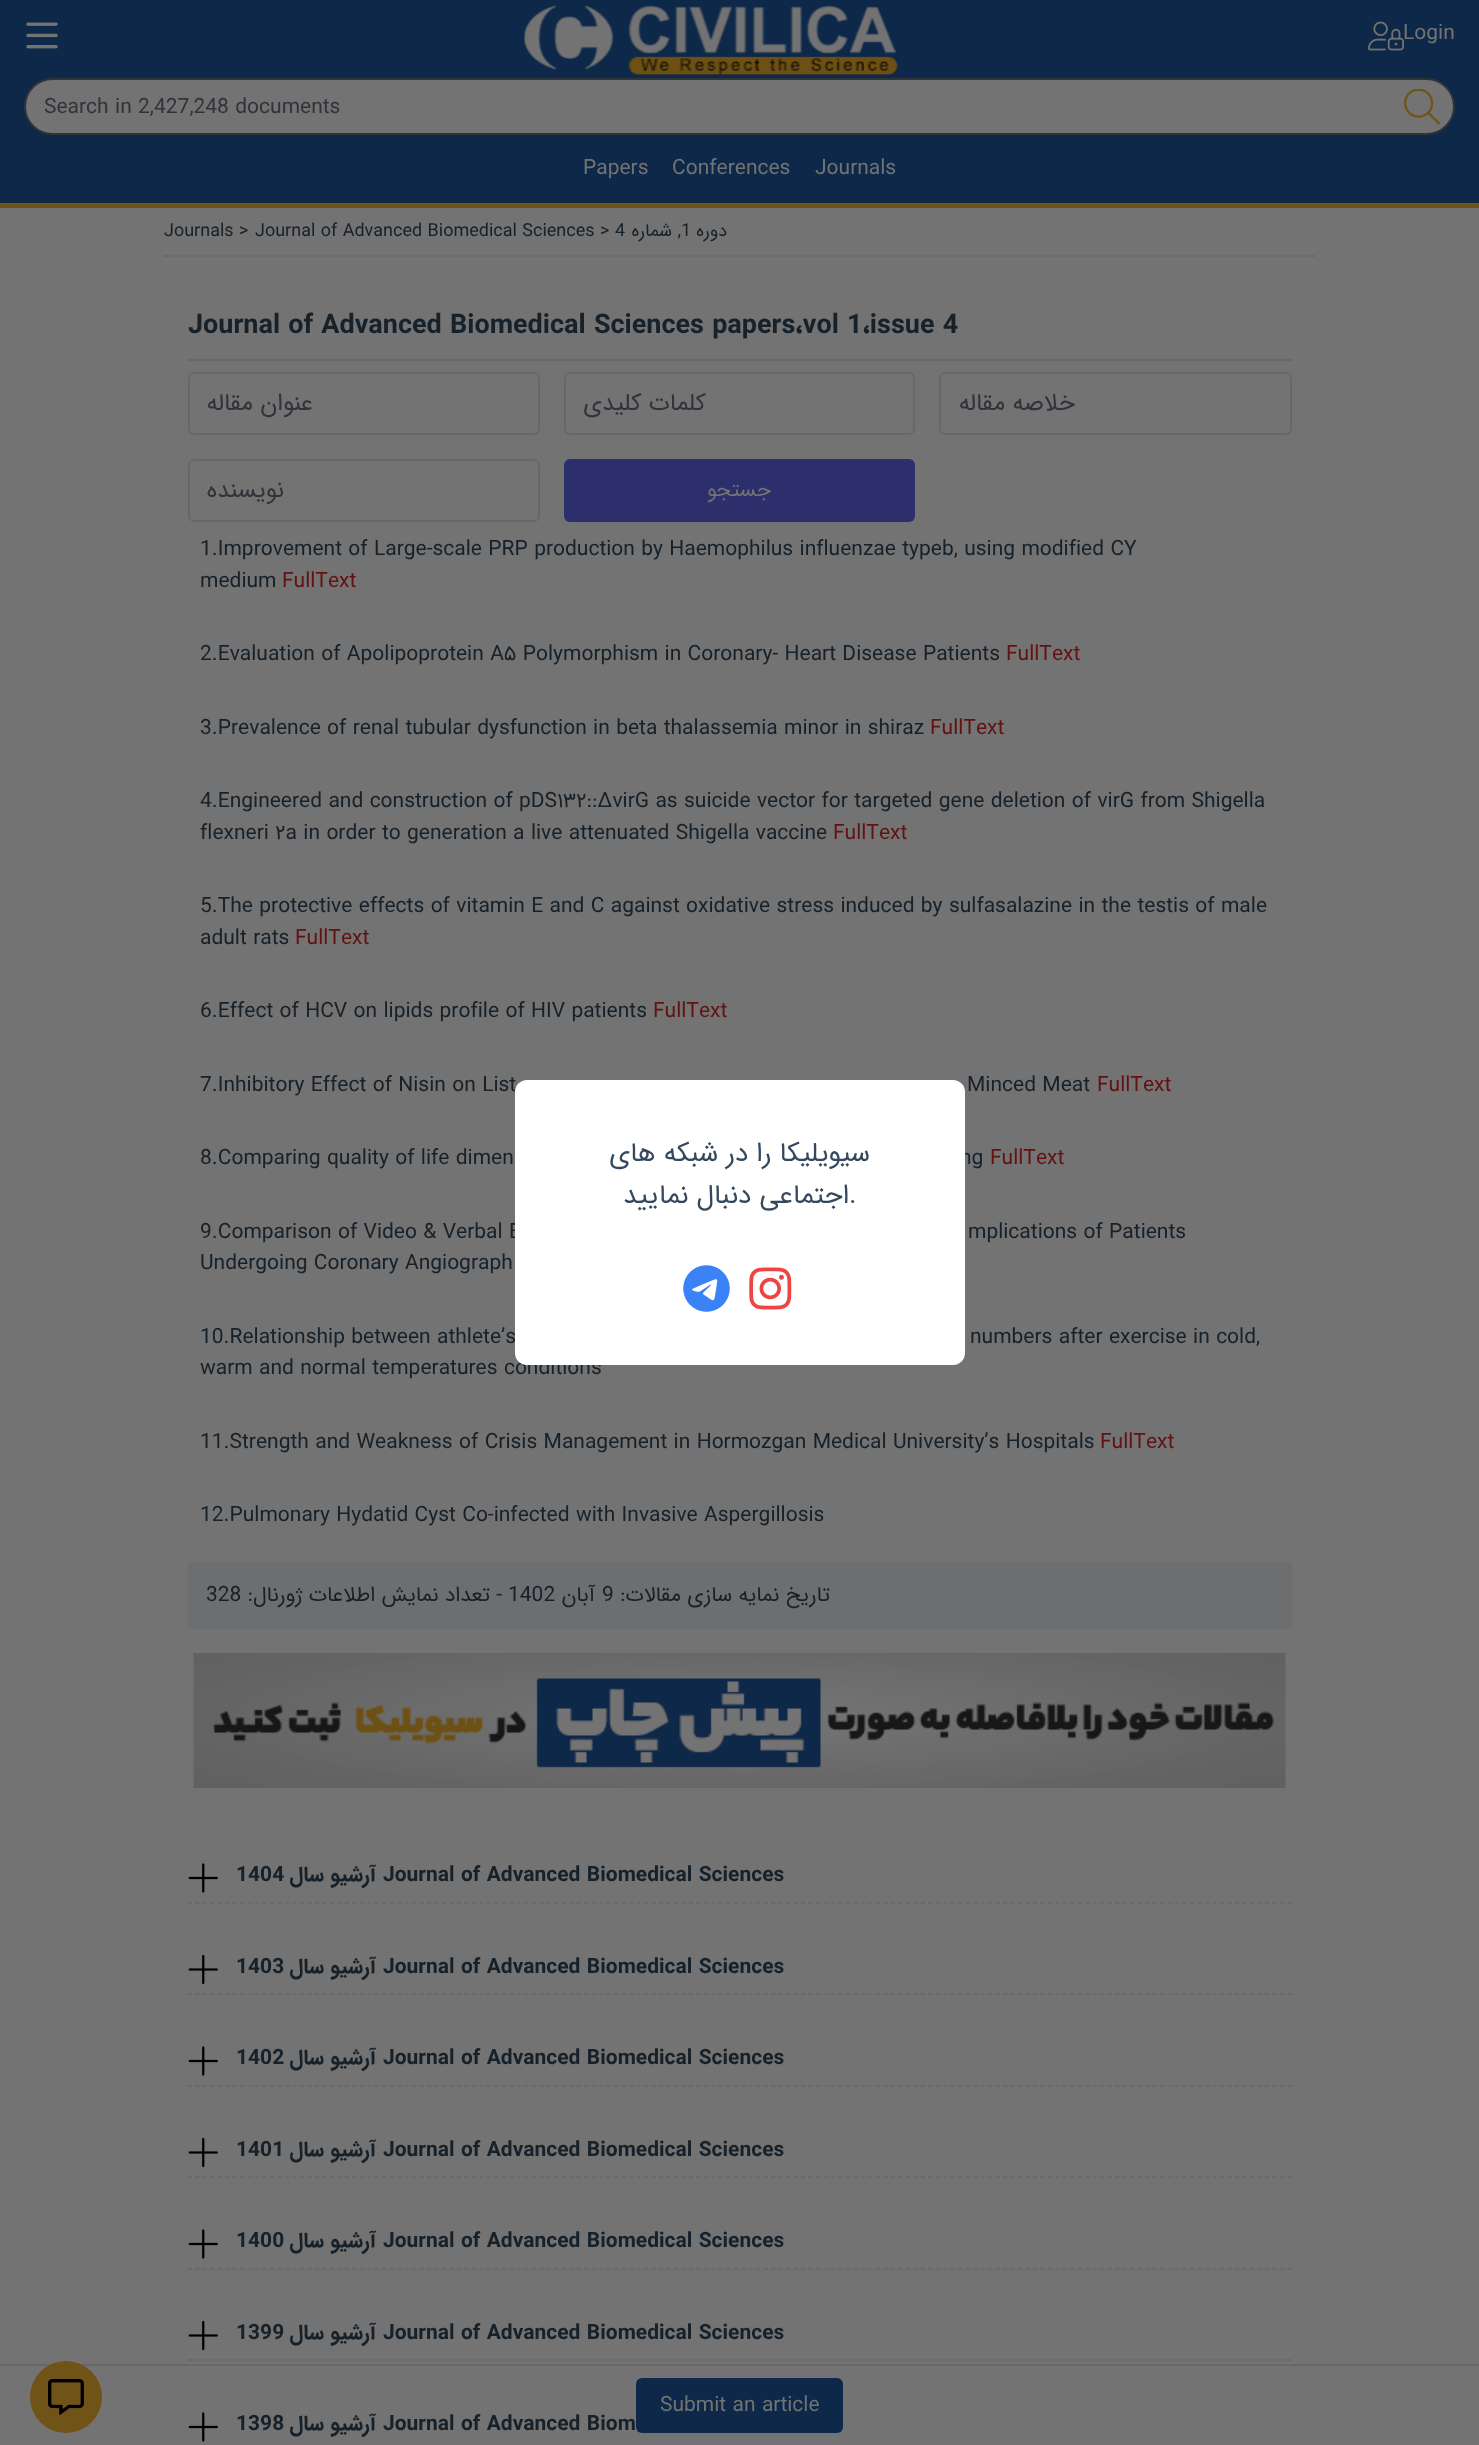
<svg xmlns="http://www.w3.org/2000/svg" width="1479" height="2445">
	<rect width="100%" height="100%" fill="#737373" />
	<rect x="0" y="0" width="1479" height="203" fill="#0D2848" />
	<rect x="0" y="203" width="1479" height="5" fill="#705316" />
	<image x="26" y="22" width="32" height="27" href="assets/img1.png" />
	<image x="524" y="5" width="374" height="70" href="assets/img2.png" />
	<image x="1368" y="21" width="36" height="30" href="assets/img3.png" />
	<text x="1403" y="39" font-family="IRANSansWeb" font-size="21" fill="#737373">Login</text>
	<rect x="25" y="79" width="1429" height="55" rx="27.5" fill="#737373" stroke="#30333A" stroke-width="2" />
	<text x="44" y="113" font-family="IRANSansWeb" font-size="21" fill="#30333A">Search in 2,427,248 documents</text>
	<image x="1404" y="89" width="36" height="36" href="assets/img4.png" />
	<g font-family="IRANSansWeb" font-size="21" fill="#737373">
		<text x="583" y="174">Papers</text>
		<text x="672" y="174">Conferences</text>
		<text x="815" y="174">Journals</text>
	</g>
	<path d="M163.5 256H1315.5" fill="none" stroke="#67686A" stroke-width="1.5" stroke-dasharray="4.5 3" />
	<g font-family="IRANSansWeb" font-size="18" fill="#17212A">
		<text x="164" y="236">Journals</text>
		<text x="239" y="236">&gt;</text>
		<text x="255" y="236">Journal of Advanced Biomedical Sciences</text>
		<text x="600" y="236">&gt;</text>
		<text x="615" y="236">4</text>
	</g>
	<text x="681" y="236" font-family="IRANSansWeb" font-size="18" direction="rtl" fill="#17212A">, شماره</text>
	<text x="681" y="236" font-family="IRANSansWeb" font-size="18" fill="#17212A">1</text>
	<text x="727" y="236" font-family="IRANSansWeb" font-size="18" direction="rtl" fill="#17212A">دوره</text>
	<rect x="188" y="359" width="1104" height="2" fill="#67686A" />
	<text x="188" y="333" font-family="IRANSansWeb" font-size="27" font-weight="700" fill="#17212A">Journal of Advanced Biomedical Sciences papers،vol 1،issue 4</text>
	<rect x="189" y="373" width="350" height="61" rx="5" fill="none" stroke="#67686A" stroke-width="2" />
	<text x="313" y="410" font-family="IRANSansWeb" font-size="24" direction="rtl" fill="#30333A">عنوان مقاله</text>
	<rect x="565" y="373" width="349" height="61" rx="5" fill="none" stroke="#67686A" stroke-width="2" />
	<text x="706" y="410" font-family="IRANSansWeb" font-size="24" direction="rtl" fill="#30333A">کلمات کلیدی</text>
	<rect x="940" y="373" width="351" height="61" rx="5" fill="none" stroke="#67686A" stroke-width="2" />
	<text x="1075" y="410" font-family="IRANSansWeb" font-size="24" direction="rtl" fill="#30333A">خلاصه مقاله</text>
	<rect x="189" y="460" width="350" height="61" rx="5" fill="none" stroke="#67686A" stroke-width="2" />
	<text x="284" y="497" font-family="IRANSansWeb" font-size="24" direction="rtl" fill="#30333A">نویسنده</text>
	<rect x="564" y="459" width="351" height="63" rx="6" fill="#2D2E6C" />
	<text x="771" y="496" font-family="IRANSansWeb" font-size="21" direction="rtl" fill="#737373">جستجو</text>
	<g font-family="IRANSansWeb" font-size="21" fill="#17212A">
		<text x="200" y="555">1.Improvement of Large-scale PRP production by Haemophilus influenzae typeb, using modified CY</text>
		<text x="200" y="587">medium</text>
	</g>
	<text x="282" y="587" font-family="IRANSansWeb" font-size="21" fill="#631111">FullText</text>
	<text x="200" y="660" font-family="IRANSansWeb" font-size="21" fill="#17212A">2.Evaluation of Apolipoprotein A۵ Polymorphism in Coronary- Heart Disease Patients</text>
	<text x="1006" y="660" font-family="IRANSansWeb" font-size="21" fill="#631111">FullText</text>
	<text x="200" y="734" font-family="IRANSansWeb" font-size="21" fill="#17212A">3.Prevalence of renal tubular dysfunction in beta thalassemia minor in shiraz</text>
	<text x="930" y="734" font-family="IRANSansWeb" font-size="21" fill="#631111">FullText</text>
	<g font-family="IRANSansWeb" font-size="21" fill="#17212A">
		<text x="200" y="807">4.Engineered and construction of pDS۱۳۲::∆virG as suicide vector for targeted gene deletion of virG from Shigella</text>
		<text x="200" y="839">flexneri ۲a in order to generation a live attenuated Shigella vaccine</text>
	</g>
	<text x="833" y="839" font-family="IRANSansWeb" font-size="21" fill="#631111">FullText</text>
	<g font-family="IRANSansWeb" font-size="21" fill="#17212A">
		<text x="200" y="912">5.The protective effects of vitamin E and C against oxidative stress induced by sulfasalazine in the testis of male</text>
		<text x="200" y="944">adult rats</text>
	</g>
	<text x="295" y="944" font-family="IRANSansWeb" font-size="21" fill="#631111">FullText</text>
	<text x="200" y="1017" font-family="IRANSansWeb" font-size="21" fill="#17212A">6.Effect of HCV on lipids profile of HIV patients</text>
	<text x="653" y="1017" font-family="IRANSansWeb" font-size="21" fill="#631111">FullText</text>
	<g font-family="IRANSansWeb" font-size="21" fill="#17212A">
		<text x="200" y="1091">7.Inhibitory Effect of Nisin on List</text>
		<text x="967" y="1091">Minced Meat</text>
	</g>
	<text x="1097" y="1091" font-family="IRANSansWeb" font-size="21" fill="#631111">FullText</text>
	<g font-family="IRANSansWeb" font-size="21" fill="#17212A">
		<text x="200" y="1164">8.Comparing quality of life dimen</text>
		<text x="960" y="1164">ng</text>
	</g>
	<text x="990" y="1164" font-family="IRANSansWeb" font-size="21" fill="#631111">FullText</text>
	<g font-family="IRANSansWeb" font-size="21" fill="#17212A">
		<text x="200" y="1238">9.Comparison of Video &amp; Verbal E</text>
		<text x="968" y="1238">mplications of Patients</text>
		<text x="200" y="1269">Undergoing Coronary Angiograph</text>
		<text x="200" y="1343">10.Relationship between athlete’s</text>
		<text x="970" y="1343">numbers after exercise in cold,</text>
		<text x="200" y="1374">warm and normal temperatures conditions</text>
		<text x="200" y="1448">11.Strength and Weakness of Crisis Management in Hormozgan Medical University’s Hospitals</text>
	</g>
	<text x="1100" y="1448" font-family="IRANSansWeb" font-size="21" fill="#631111">FullText</text>
	<text x="200" y="1521" font-family="IRANSansWeb" font-size="21" fill="#17212A">12.Pulmonary Hydatid Cyst Co-infected with Invasive Aspergillosis</text>
	<rect x="188" y="1562" width="1104" height="67" fill="#6D6E6F" />
	<text x="206" y="1601" font-family="IRANSansWeb" font-size="21" fill="#17212A">328</text>
	<text x="502" y="1601" font-family="IRANSansWeb" font-size="21" direction="rtl" fill="#17212A">- تعداد نمایش اطلاعات ژورنال:</text>
	<text x="508" y="1601" font-family="IRANSansWeb" font-size="21" fill="#17212A">1402</text>
	<text x="595" y="1601" font-family="IRANSansWeb" font-size="21" direction="rtl" fill="#17212A">آبان</text>
	<text x="602" y="1601" font-family="IRANSansWeb" font-size="21" fill="#17212A">9</text>
	<text x="830" y="1601" font-family="IRANSansWeb" font-size="21" direction="rtl" fill="#17212A">تاریخ نمایه سازی مقالات:</text>
	<image x="193" y="1653" width="1093" height="135" href="assets/img5.png" />
	<path d="M187.5 1903H1291.5" fill="none" stroke="#67686A" stroke-width="1.5" stroke-dasharray="4.5 2.98" />
	<image x="188" y="1863" width="30" height="30" href="assets/img6.png" />
	<text x="236" y="1881" font-family="IRANSansWeb" font-size="21" font-weight="700" fill="#17212A">1404</text>
	<text x="376" y="1881" font-family="IRANSansWeb" font-size="21" font-weight="700" direction="rtl" fill="#17212A">آرشیو سال</text>
	<text x="383" y="1881" font-family="IRANSansWeb" font-size="21" font-weight="700" fill="#17212A">Journal of Advanced Biomedical Sciences</text>
	<path d="M187.5 1994H1291.5" fill="none" stroke="#67686A" stroke-width="1.5" stroke-dasharray="4.5 2.98" />
	<image x="188" y="1954" width="30" height="31" href="assets/img7.png" />
	<text x="236" y="1973" font-family="IRANSansWeb" font-size="21" font-weight="700" fill="#17212A">1403</text>
	<text x="376" y="1973" font-family="IRANSansWeb" font-size="21" font-weight="700" direction="rtl" fill="#17212A">آرشیو سال</text>
	<text x="383" y="1973" font-family="IRANSansWeb" font-size="21" font-weight="700" fill="#17212A">Journal of Advanced Biomedical Sciences</text>
	<path d="M187.5 2086H1291.5" fill="none" stroke="#67686A" stroke-width="1.5" stroke-dasharray="4.5 2.98" />
	<image x="188" y="2046" width="30" height="30" href="assets/img6.png" />
	<text x="236" y="2064" font-family="IRANSansWeb" font-size="21" font-weight="700" fill="#17212A">1402</text>
	<text x="376" y="2064" font-family="IRANSansWeb" font-size="21" font-weight="700" direction="rtl" fill="#17212A">آرشیو سال</text>
	<text x="383" y="2064" font-family="IRANSansWeb" font-size="21" font-weight="700" fill="#17212A">Journal of Advanced Biomedical Sciences</text>
	<path d="M187.5 2177H1291.5" fill="none" stroke="#67686A" stroke-width="1.5" stroke-dasharray="4.5 2.98" />
	<image x="188" y="2137" width="30" height="31" href="assets/img7.png" />
	<text x="236" y="2156" font-family="IRANSansWeb" font-size="21" font-weight="700" fill="#17212A">1401</text>
	<text x="376" y="2156" font-family="IRANSansWeb" font-size="21" font-weight="700" direction="rtl" fill="#17212A">آرشیو سال</text>
	<text x="383" y="2156" font-family="IRANSansWeb" font-size="21" font-weight="700" fill="#17212A">Journal of Advanced Biomedical Sciences</text>
	<path d="M187.5 2269H1291.5" fill="none" stroke="#67686A" stroke-width="1.5" stroke-dasharray="4.5 2.98" />
	<image x="188" y="2229" width="30" height="30" href="assets/img6.png" />
	<text x="236" y="2247" font-family="IRANSansWeb" font-size="21" font-weight="700" fill="#17212A">1400</text>
	<text x="376" y="2247" font-family="IRANSansWeb" font-size="21" font-weight="700" direction="rtl" fill="#17212A">آرشیو سال</text>
	<text x="383" y="2247" font-family="IRANSansWeb" font-size="21" font-weight="700" fill="#17212A">Journal of Advanced Biomedical Sciences</text>
	<path d="M187.5 2360H1291.5" fill="none" stroke="#67686A" stroke-width="1.5" stroke-dasharray="4.5 2.98" />
	<image x="188" y="2320" width="30" height="31" href="assets/img7.png" />
	<text x="236" y="2339" font-family="IRANSansWeb" font-size="21" font-weight="700" fill="#17212A">1399</text>
	<text x="376" y="2339" font-family="IRANSansWeb" font-size="21" font-weight="700" direction="rtl" fill="#17212A">آرشیو سال</text>
	<text x="383" y="2339" font-family="IRANSansWeb" font-size="21" font-weight="700" fill="#17212A">Journal of Advanced Biomedical Sciences</text>
	<image x="188" y="2412" width="30" height="30" href="assets/img6.png" />
	<text x="236" y="2430" font-family="IRANSansWeb" font-size="21" font-weight="700" fill="#17212A">1398</text>
	<text x="376" y="2430" font-family="IRANSansWeb" font-size="21" font-weight="700" direction="rtl" fill="#17212A">آرشیو سال</text>
	<text x="383" y="2430" font-family="IRANSansWeb" font-size="21" font-weight="700" fill="#17212A">Journal of Advanced Biom</text>
	<rect x="0" y="2364" width="1479" height="2" fill="#67686A" />
	<rect x="636" y="2378" width="207" height="55" rx="6" fill="#0D2848" />
	<text x="660" y="2411" font-family="IRANSansWeb" font-size="21" fill="#737373">Submit an article</text>
	<rect x="515" y="1080" width="450" height="285" rx="12" fill="#FFFFFF" />
	<g font-family="IRANSansWeb" font-size="27" direction="rtl" fill="#34495E">
		<text x="870" y="1161">سیویلیکا را در شبکه های</text>
		<text x="849" y="1203">اجتماعی دنبال نمایید</text>
	</g>
	<text x="849" y="1203" font-family="IRANSansWeb" font-size="27" fill="#34495E">.</text>
	<image x="683" y="1265" width="47" height="47" href="assets/img8.png" />
	<image x="749" y="1267" width="43" height="43" href="assets/img9.png" />
	<circle cx="66" cy="2397" r="36" fill="#705316" />
	<image x="48" y="2379" width="36" height="36" href="assets/img10.png" />
</svg>
